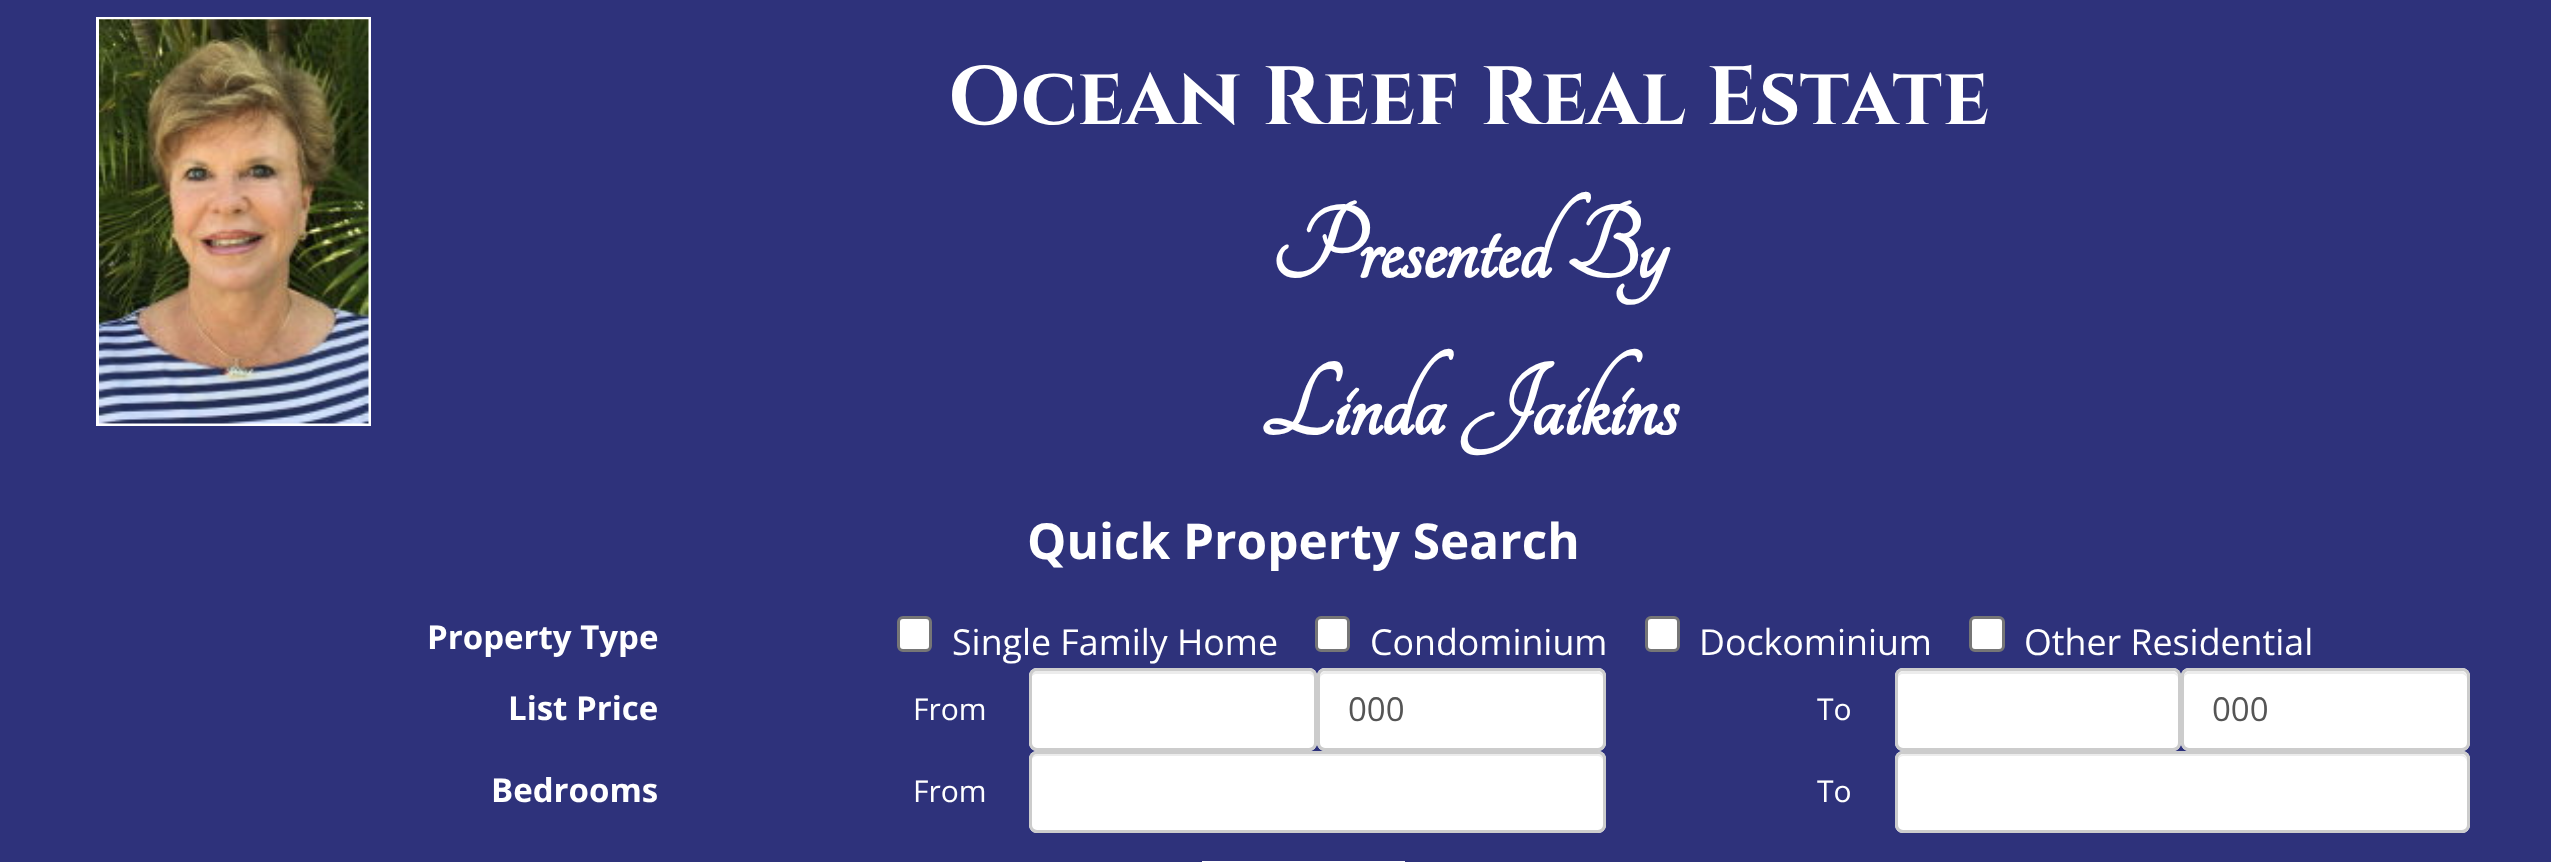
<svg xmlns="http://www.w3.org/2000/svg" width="2551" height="862">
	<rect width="100%" height="100%" fill="#2E327B" />
	<rect x="97.5" y="18.5" width="272" height="406" fill="none" stroke="#FFFFFF" stroke-width="3" />
	<image x="99" y="19" width="270" height="405" href="assets/img1.png" />
	<text x="948" y="124" font-family="Cinzel" font-size="82.5" font-weight="700" fill="#FFFFFF">Ocean Reef Real Estate</text>
	<g font-family="Tangerine" font-size="110" font-weight="700" fill="#FFFFFF">
		<text x="1271" y="278">Presented By</text>
		<text x="1260" y="435">Linda Jaikins</text>
	</g>
	<text x="1027" y="559" font-family="Open Sans" font-size="49.5" font-weight="700" fill="#FFFFFF">Quick Property Search</text>
	<text x="427" y="649" font-family="Open Sans" font-size="33" font-weight="700" fill="#FFFFFF">Property Type</text>
	<rect x="898.5" y="617.5" width="32" height="33" rx="4.5" fill="#FFFFFF" stroke="#767676" stroke-width="3" />
	<text x="952" y="655" font-family="Open Sans" font-size="35.75" fill="#FFFFFF">Single Family Home</text>
	<rect x="1316.5" y="617.5" width="32" height="33" rx="4.5" fill="#FFFFFF" stroke="#767676" stroke-width="3" />
	<text x="1370" y="655" font-family="Open Sans" font-size="35.75" fill="#FFFFFF">Condominium</text>
	<rect x="1646.5" y="617.5" width="32" height="33" rx="4.5" fill="#FFFFFF" stroke="#767676" stroke-width="3" />
	<text x="1699" y="655" font-family="Open Sans" font-size="35.75" fill="#FFFFFF">Dockominium</text>
	<rect x="1970.5" y="617.5" width="33" height="33" rx="4.5" fill="#FFFFFF" stroke="#767676" stroke-width="3" />
	<text x="2024" y="655" font-family="Open Sans" font-size="35.75" fill="#FFFFFF">Other Residential</text>
	<text x="508" y="720" font-family="Open Sans" font-size="33" font-weight="700" fill="#FFFFFF">List Price</text>
	<text x="913" y="720" font-family="Open Sans" font-size="30" fill="#FFFFFF">From</text>
	<rect x="1029" y="668" width="288" height="83" rx="8" fill="#FFFFFF" />
	<path d="M1037 674H1309C1317 674 1314 686 1314 690V745C1315 744 1315 743 1315 742V677C1315 674 1312 671 1309 671H1037C1034 671 1031 674 1031 677V679C1031 676 1034 674 1037 674Z" fill="#ECECEC" />
	<rect x="1030.5" y="669.5" width="285" height="80" rx="6.5" fill="none" stroke="#CCCCCC" stroke-width="3" />
	<rect x="1317" y="668" width="289" height="83" rx="8" fill="#FFFFFF" />
	<path d="M1326 674H1598C1601 674 1603 676 1603 679V677C1603 674 1600 671 1597 671H1326C1323 671 1320 674 1320 677V679C1320 676 1322 674 1326 674Z" fill="#ECECEC" />
	<rect x="1318.5" y="669.5" width="286" height="80" rx="6.5" fill="none" stroke="#CCCCCC" stroke-width="3" />
	<text x="1348" y="721" font-family="Open Sans" font-size="33" fill="#555555">000</text>
	<text x="1817" y="720" font-family="Open Sans" font-size="30" fill="#FFFFFF">To</text>
	<rect x="1895" y="668" width="286" height="83" rx="8" fill="#FFFFFF" />
	<path d="M1903 674H2172C2176 674 2178 676 2178 679V677C2178 674 2175 671 2172 671H1904C1901 671 1898 674 1898 677V679C1898 676 1900 674 1903 674Z" fill="#ECECEC" />
	<rect x="1896.5" y="669.5" width="283" height="80" rx="6.5" fill="none" stroke="#CCCCCC" stroke-width="3" />
	<rect x="2181" y="668" width="289" height="83" rx="8" fill="#FFFFFF" />
	<path d="M2189 674H2461C2464 674 2467 676 2467 679V677C2467 674 2464 671 2461 671H2190C2187 671 2184 674 2184 677V679C2184 676 2186 674 2189 674Z" fill="#ECECEC" />
	<rect x="2182.5" y="669.5" width="286" height="80" rx="6.5" fill="none" stroke="#CCCCCC" stroke-width="3" />
	<text x="2212" y="721" font-family="Open Sans" font-size="33" fill="#555555">000</text>
	<text x="491" y="802" font-family="Open Sans" font-size="33" font-weight="700" fill="#FFFFFF">Bedrooms</text>
	<text x="913" y="802" font-family="Open Sans" font-size="30" fill="#FFFFFF">From</text>
	<rect x="1029" y="751" width="577" height="82" rx="8" fill="#FFFFFF" />
	<path d="M1037 756H1598C1601 756 1603 759 1603 762C1603 758 1602 754 1597 754H1037C1032 754 1031 758 1031 762C1031 759 1034 756 1037 756Z" fill="#ECECEC" />
	<rect x="1030.5" y="752.5" width="574" height="79" rx="6.5" fill="none" stroke="#CCCCCC" stroke-width="3" />
	<text x="1817" y="802" font-family="Open Sans" font-size="30" fill="#FFFFFF">To</text>
	<rect x="1895" y="751" width="575" height="82" rx="8" fill="#FFFFFF" />
	<path d="M1903 756H2461C2464 756 2467 759 2467 762V760C2467 757 2464 754 2461 754H1904C1901 754 1898 757 1898 760V762C1898 759 1900 756 1903 756Z" fill="#ECECEC" />
	<rect x="1896.5" y="752.5" width="572" height="79" rx="6.5" fill="none" stroke="#CCCCCC" stroke-width="3" />
	<rect x="1205" y="864" width="197" height="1" fill="none" stroke="#FFFFFF" stroke-width="6" />
</svg>
